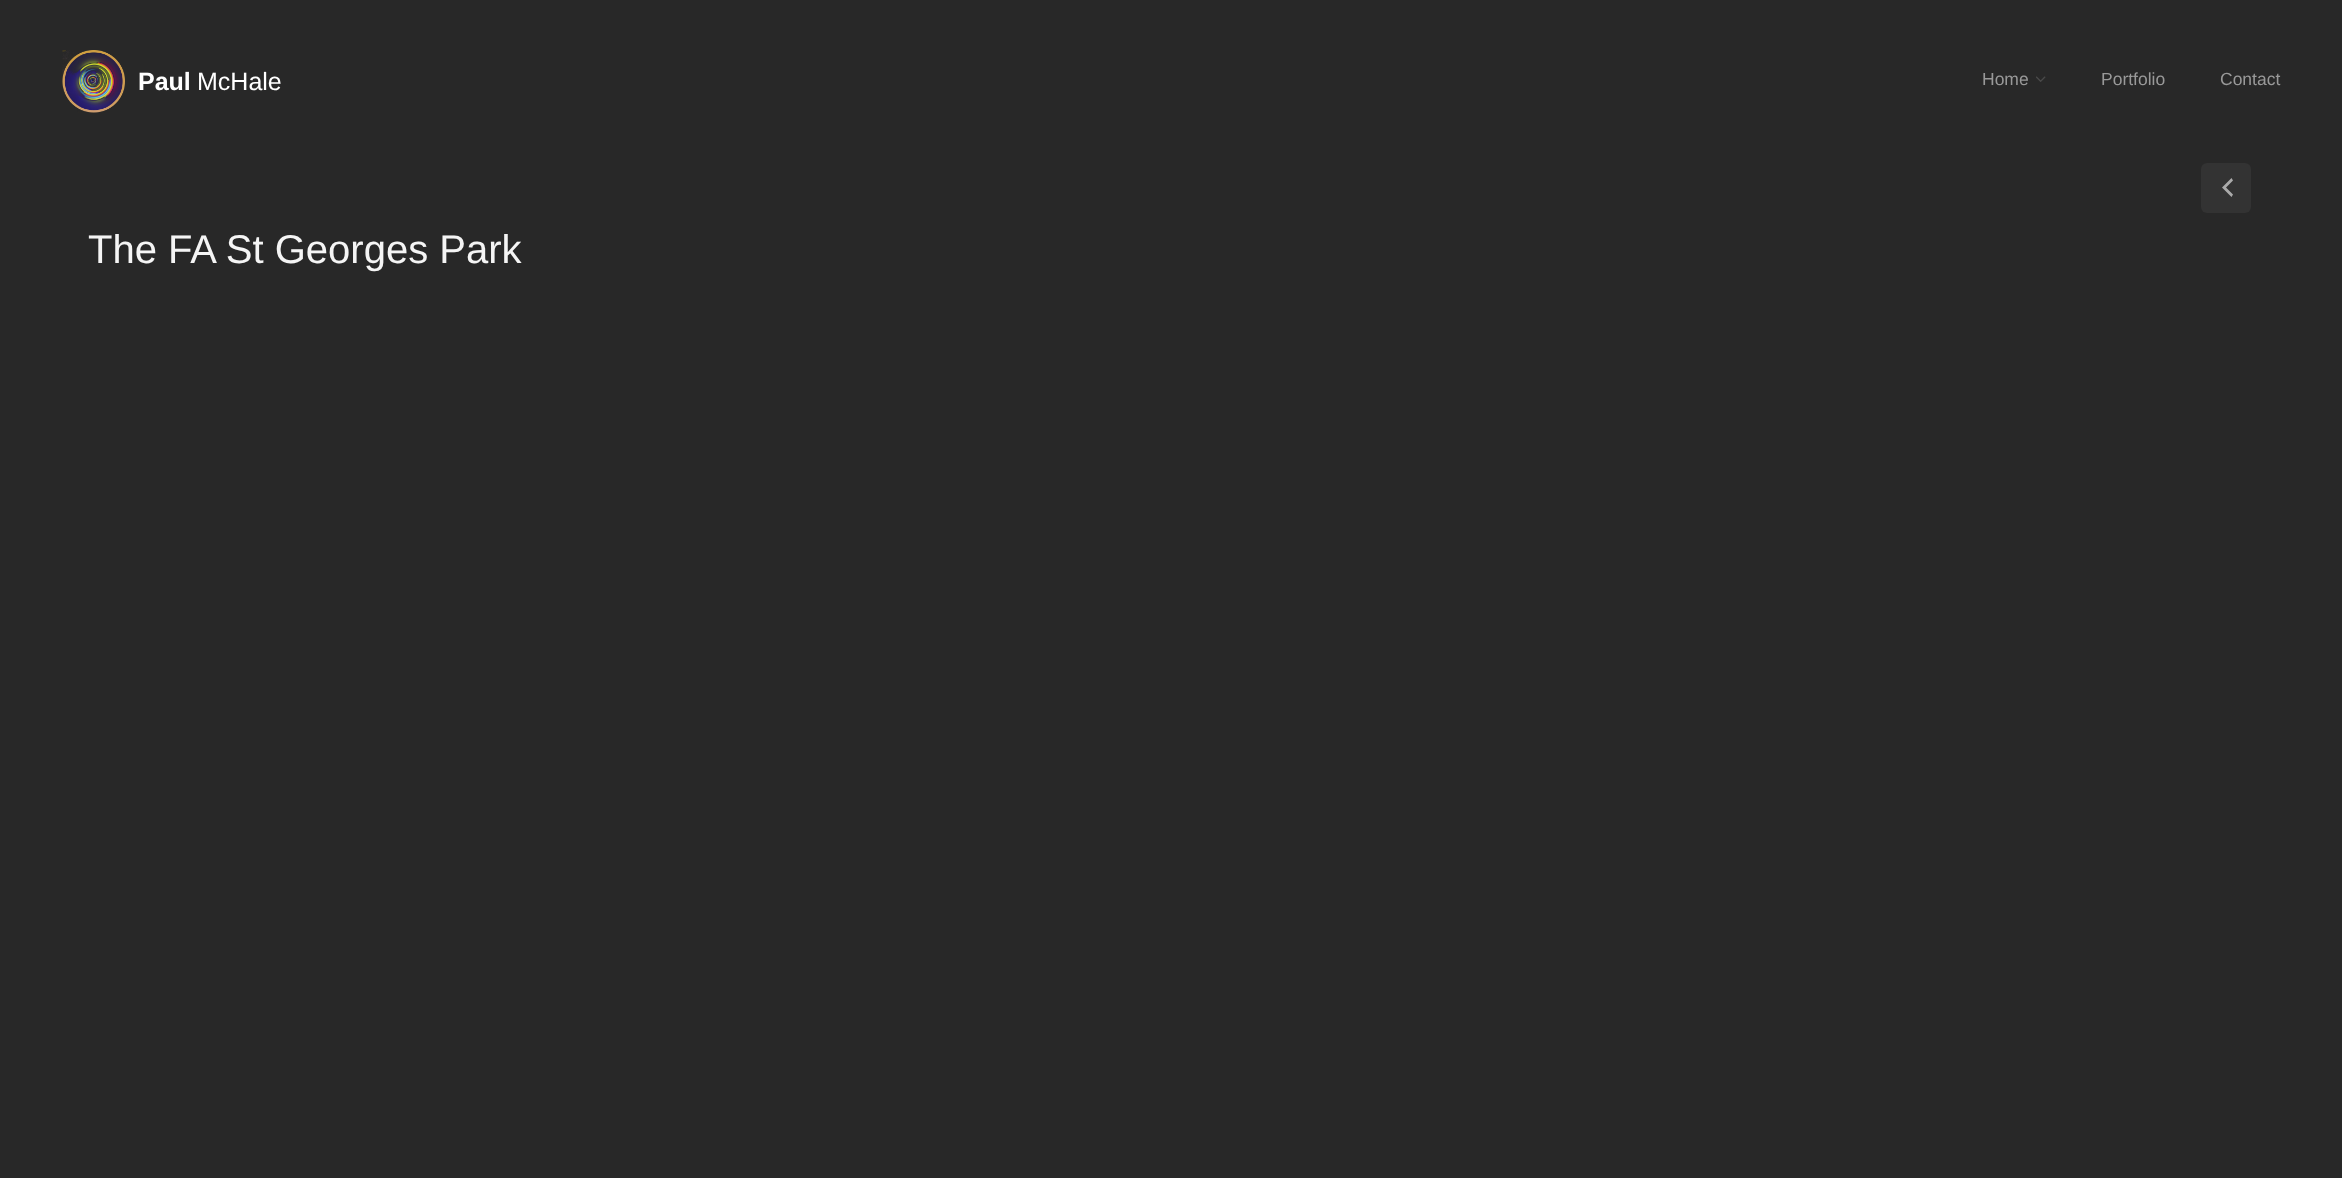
<svg xmlns="http://www.w3.org/2000/svg" width="2342" height="1178">
	<rect width="100%" height="100%" fill="#282828" />
	<image x="62" y="50" width="63" height="63" href="assets/img1.png" />
	<text x="138" y="90" font-family="Liberation Sans" font-size="25" font-weight="700" fill="#FFFFFF">Paul</text>
	<text x="197" y="90" font-family="Liberation Sans" font-size="25" fill="#FFFFFF">McHale</text>
	<text x="1982" y="85" font-family="Liberation Sans" font-size="17.5" fill="#999999">Home</text>
	<image x="2036" y="76" width="10" height="6" href="assets/img2.png" />
	<g font-family="Liberation Sans" font-size="17.5" fill="#999999">
		<text x="2101" y="85">Portfolio</text>
		<text x="2220" y="85">Contact</text>
	</g>
	<rect x="2201" y="163" width="50" height="50" rx="6" fill="#333333" />
	<path d="M2233 180.5L2226 187.5L2233 194.5L2231.5 197L2222 187.5L2231.5 178Z" fill="#AAAAAA" />
	<text x="88" y="263" font-family="Liberation Sans" font-size="40" fill="#F5F5F5">The FA St Georges Park</text>
</svg>
